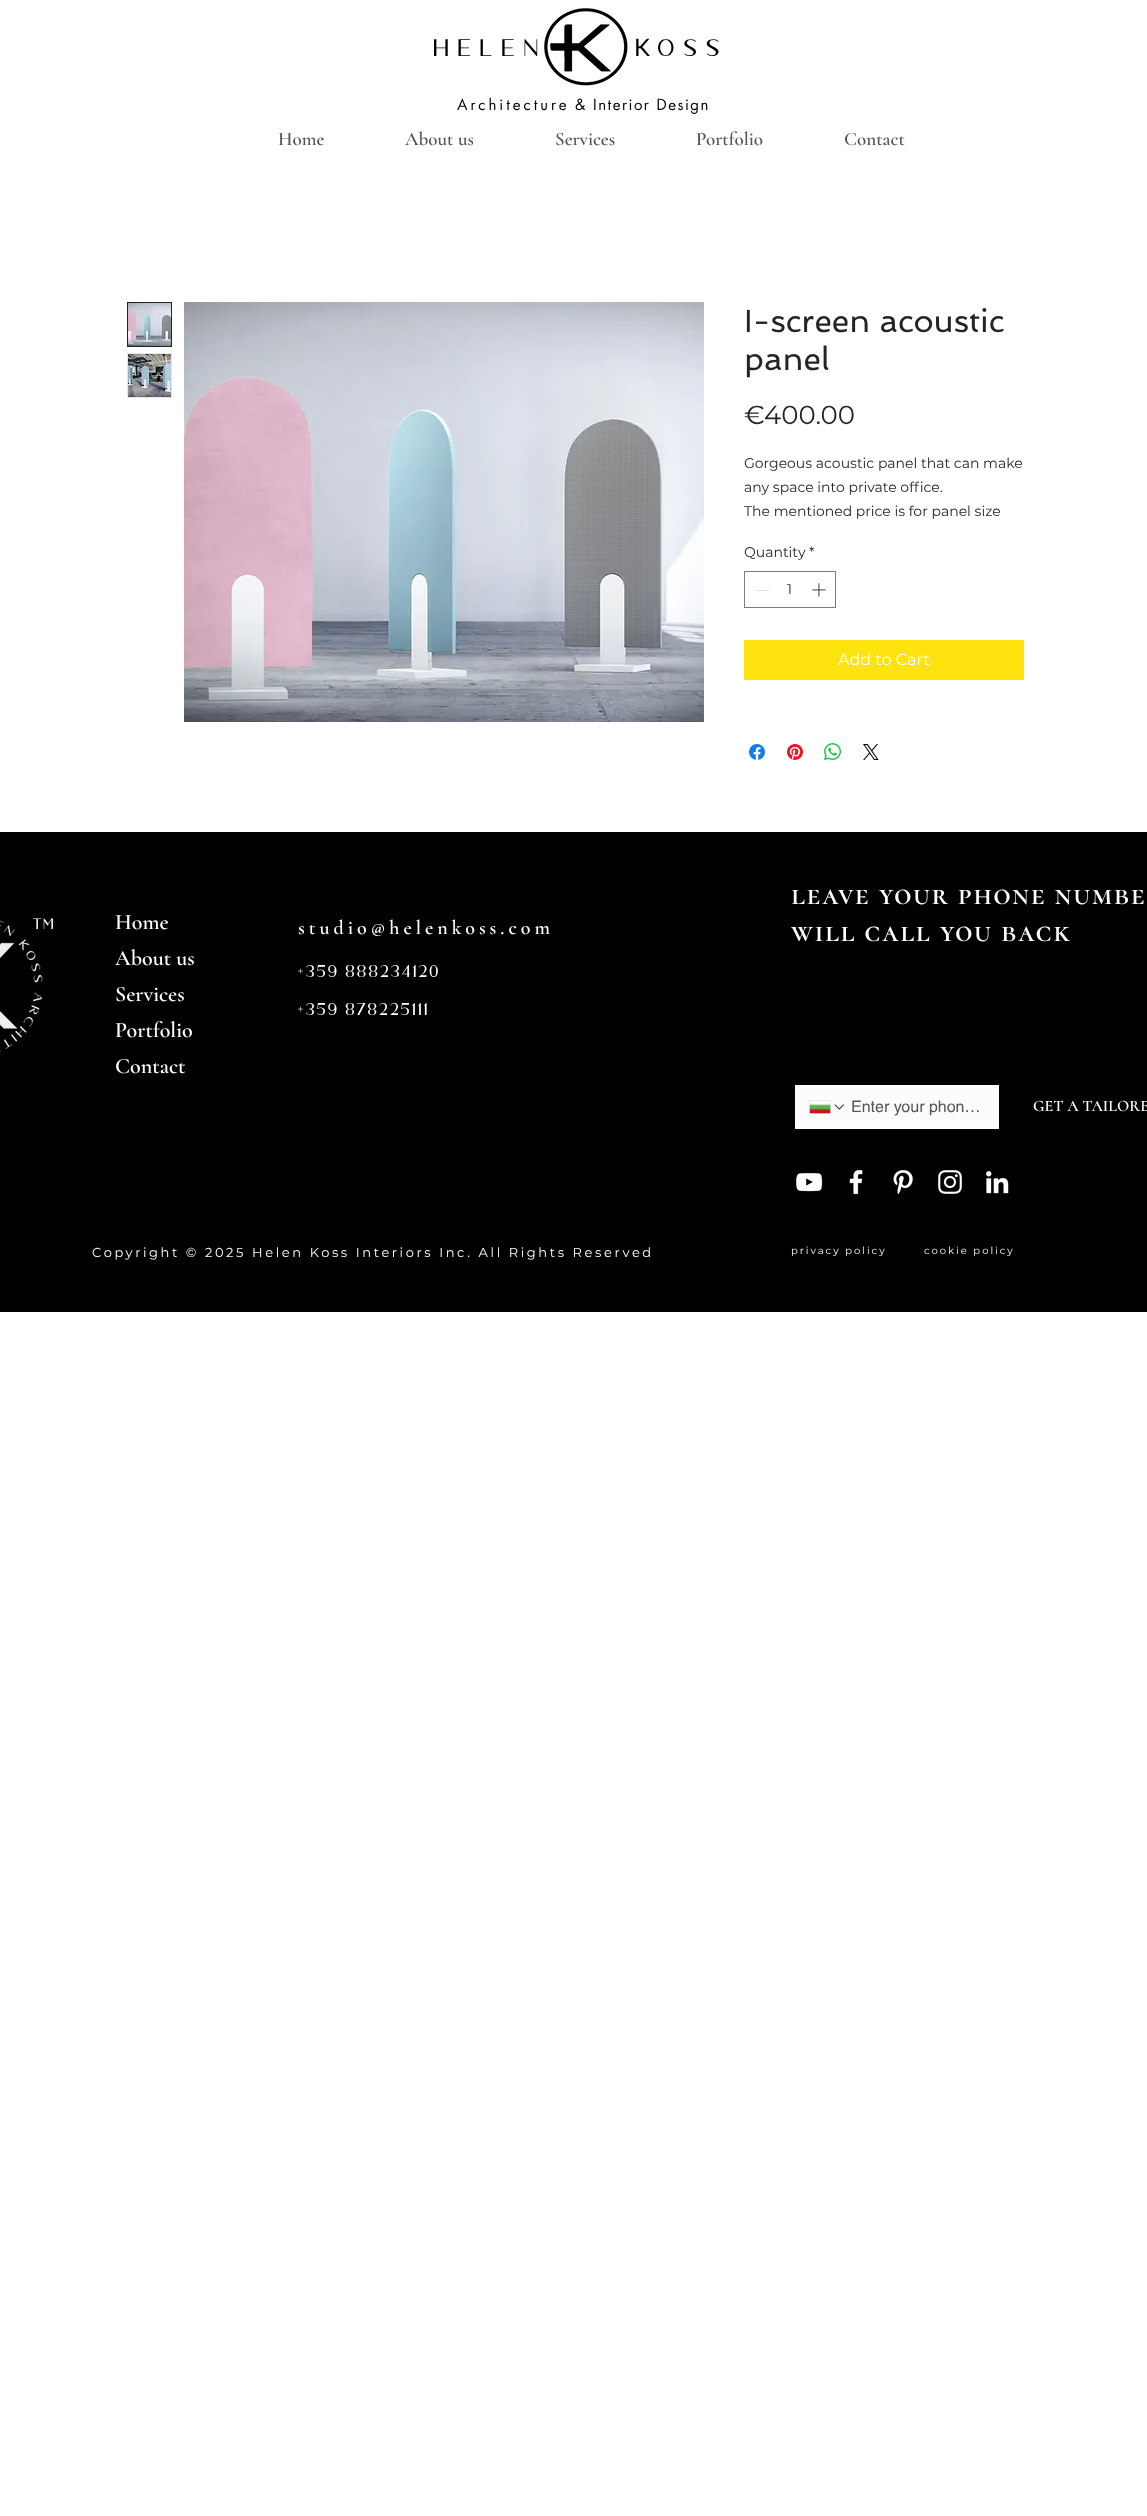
<svg xmlns="http://www.w3.org/2000/svg" width="1147" height="2516">
	<rect width="100%" height="100%" fill="#FFFFFF" />
	<image x="544" y="8" width="84" height="78" href="assets/img1.png" />
	<text x="434" y="56" font-family="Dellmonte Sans" font-size="24" letter-spacing="8.5" fill="#000000">HELEN</text>
	<text x="634" y="56" font-family="Lato" font-size="24" letter-spacing="8.5" fill="#000000">K</text>
	<text x="658" y="56" font-family="Dellmonte Sans" font-size="24" letter-spacing="8.5" fill="#000000">OSS</text>
	<text x="457" y="110" font-family="futura" font-size="15" letter-spacing="3" fill="#000000">Architecture</text>
	<text x="575" y="110" font-family="futura" font-size="15" letter-spacing="1.5" fill="#000000">&amp; Interior Design</text>
	<g font-family="Cormorant Garamond" font-size="19" font-weight="600" fill="#555555">
		<text x="278" y="145">Home</text>
		<text x="405" y="145">About us</text>
		<text x="555" y="145">Services</text>
		<text x="696" y="145">Portfolio</text>
		<text x="844" y="145">Contact</text>
	</g>
	<rect x="127.5" y="302.5" width="44" height="44" fill="none" stroke="#242424" />
	<image x="128" y="303" width="43" height="43" href="assets/img2.png" />
	<rect x="127" y="353" width="45" height="45" fill="#E6E6E6" />
	<image x="128" y="354" width="43" height="43" href="assets/img3.png" />
	<image x="184" y="302" width="520" height="420" href="assets/img4.png" />
	<g font-family="Spinnaker" font-size="32" fill="#242424">
		<text x="744" y="332">I-screen acoustic</text>
		<text x="744" y="370">panel</text>
	</g>
	<text x="744" y="424" font-family="Montserrat" font-size="26" fill="#242424">€400.00</text>
	<g font-family="Montserrat" font-size="14" fill="#242424">
		<text x="744" y="468">Gorgeous acoustic panel that can make</text>
		<text x="744" y="492">any space into private office.</text>
		<text x="744" y="516">The mentioned price is for panel size</text>
		<text x="744" y="557">Quantity</text>
		<text x="809" y="557">*</text>
	</g>
	<rect x="744.5" y="571.5" width="91" height="36" fill="none" stroke="#7C7C7C" />
	<rect x="756" y="590" width="13" height="1" fill="#E3E3E3" />
	<text x="787" y="594" font-family="Montserrat" font-size="14" fill="#242424">1</text>
	<image x="812" y="583" width="14" height="14" href="assets/img5.png" />
	<rect x="744" y="640" width="280" height="40" fill="#FFE30F" />
	<text x="838" y="665" font-family="Montserrat" font-size="16" fill="#FFFFFF">Add to Cart</text>
	<image x="749" y="744" width="16" height="16" href="assets/img6.png" />
	<image x="787" y="744" width="16" height="16" href="assets/img7.png" />
	<image x="824" y="743" width="17" height="17" href="assets/img8.png" />
	<image x="863" y="744" width="16" height="16" href="assets/img9.png" />
	<rect x="0" y="832" width="1147" height="480" fill="#000000" />
	<image x="0" y="920" width="43" height="132" href="assets/img10.png" />
	<text x="33" y="929" font-family="Dellmonte Sans" font-size="15" letter-spacing="1" fill="#FFFFFF">TM</text>
	<g font-family="Cormorant Garamond" font-size="22" font-weight="600" fill="#FFFFFF">
		<text x="115" y="929">Home</text>
		<text x="115" y="965">About us</text>
		<text x="115" y="1001">Services</text>
		<text x="115" y="1037">Portfolio</text>
		<text x="115" y="1073">Contact</text>
	</g>
	<text x="298" y="934" font-family="Cormorant Garamond" font-size="20" font-weight="600" letter-spacing="4" fill="#FFFFFF">studio@helenkoss.com</text>
	<g font-family="Cormorant SC" font-size="30" font-weight="600" letter-spacing="1.5" fill="#FFFFFF">
		<text x="791" y="904">leave your phone numbe</text>
		<text x="791" y="941">will call you back</text>
	</g>
	<g font-family="Dellmonte Sans" font-size="17" letter-spacing="1.75" fill="#FFFFFF">
		<text x="298" y="977">+359 888234120</text>
		<text x="298" y="1015">+359 878225111</text>
	</g>
	<rect x="796" y="1086" width="202" height="42" fill="#FCFCFC" stroke="#FFFFFF" stroke-width="2" />
	<image x="809" y="1100" width="22" height="14" href="assets/img11.png" />
	<image x="834" y="1104" width="10" height="6" href="assets/img12.png" />
	<text x="851" y="1112" font-family="helvetica" font-size="16" fill="#555555">Enter your phon…</text>
	<text x="1033" y="1111" font-family="Cormorant SC" font-size="16" font-weight="600" fill="#FFFFFF">GET A TAILORE</text>
	<image x="796" y="1173" width="27" height="19" href="assets/img13.png" />
	<image x="849" y="1169" width="14" height="26" href="assets/img14.png" />
	<image x="893" y="1169" width="20" height="25" href="assets/img15.png" />
	<image x="938" y="1170" width="24" height="24" href="assets/img16.png" />
	<image x="985" y="1171" width="24" height="23" href="assets/img17.png" />
	<text x="92" y="1257" font-family="Montserrat" font-size="13" letter-spacing="2.6" fill="#FFFFFF">Copyright © 2025 Helen Koss Interiors Inc. All Rights Reserved</text>
	<g font-family="Montserrat" font-size="10" letter-spacing="2" fill="#FFFFFF">
		<text x="791" y="1254">privacy policy</text>
		<text x="924" y="1254">cookie policy</text>
	</g>
</svg>
